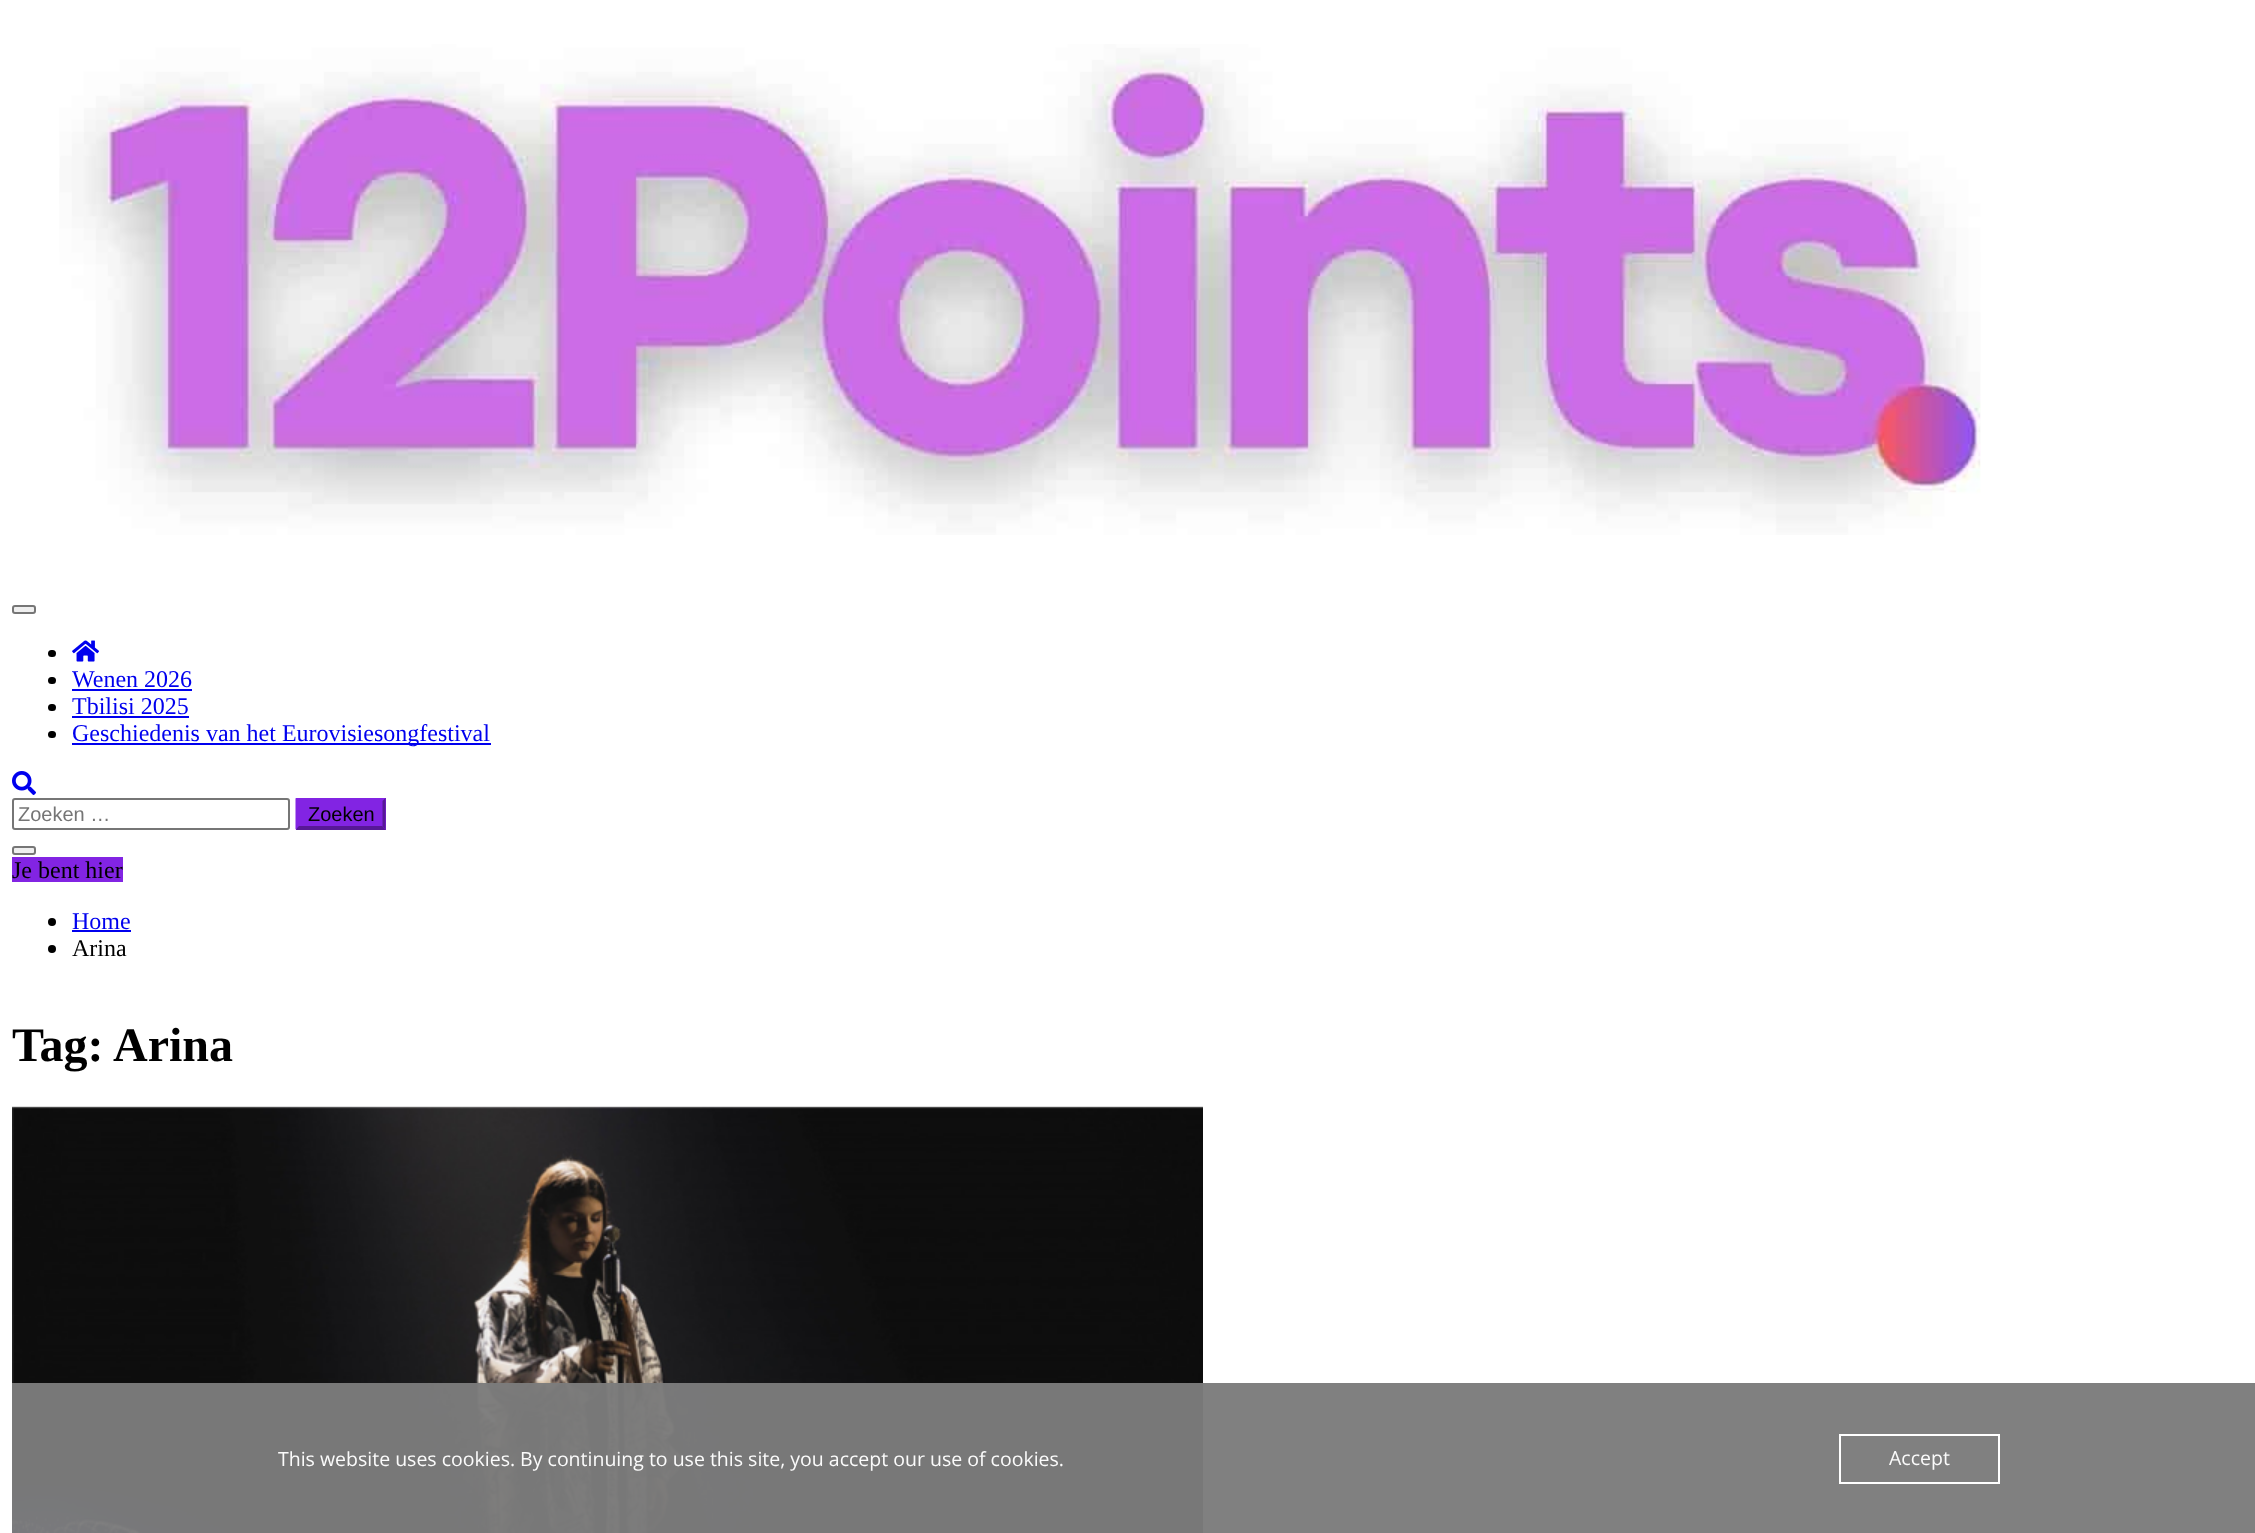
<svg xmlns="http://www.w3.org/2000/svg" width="2255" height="1533">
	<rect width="100%" height="100%" fill="#FFFFFF" />
	<image x="59" y="44" width="1922" height="491" href="assets/img1.png" />
	<rect x="13" y="606" width="22" height="7" rx="2" fill="#EFEFEF" stroke="#767676" stroke-width="2" />
	<rect x="48" y="650" width="8" height="7" rx="3.5" fill="#000000" />
	<image x="72" y="640" width="27" height="22" href="assets/img2.png" />
	<rect x="48" y="677" width="8" height="7" rx="3.5" fill="#000000" />
	<text x="72" y="687" font-family="Liberation Serif" font-size="24" fill="#0000EE">Wenen 2026</text>
	<rect x="72" y="689" width="120" height="2" fill="#0000EE" />
	<rect x="48" y="704" width="8" height="7" rx="3.5" fill="#000000" />
	<text x="72" y="714" font-family="Liberation Serif" font-size="24" fill="#0000EE">Tbilisi 2025</text>
	<rect x="72" y="716" width="117" height="2" fill="#0000EE" />
	<rect x="48" y="731" width="8" height="7" rx="3.5" fill="#000000" />
	<rect x="72" y="743" width="419" height="2" fill="#0000EE" />
	<text x="72" y="741" font-family="Liberation Serif" font-size="24" fill="#0000EE">Geschiedenis van het Eurovisiesongfestival</text>
	<image x="12" y="771" width="24" height="24" href="assets/img3.png" />
	<rect x="13" y="799" width="276" height="30" rx="2" fill="none" stroke="#767676" stroke-width="2" />
	<text x="18" y="821" font-family="Liberation Sans" font-size="20" fill="#757575">Zoeken …</text>
	<rect x="296" y="798" width="90" height="32" fill="#8224E3" />
	<path d="M385.5 798V829.5L382.5 826.5V801Z" fill="#571897" />
	<path d="M386 830H296L298 826H382Z" fill="#571897" />
	<path d="M295.5 829.5V798L298.5 801V826.5Z" fill="#8224E3" />
	<text x="308" y="821" font-family="Liberation Sans" font-size="20" fill="#000000">Zoeken</text>
	<rect x="13" y="847" width="22" height="7" rx="2" fill="#EFEFEF" stroke="#767676" stroke-width="2" />
	<rect x="12" y="857" width="111" height="25" fill="#8224E3" />
	<text x="12" y="878" font-family="Liberation Serif" font-size="24" fill="#000000">Je bent hier</text>
	<circle cx="52" cy="922" r="4" fill="#000000" />
	<text x="72" y="929" font-family="Liberation Serif" font-size="24" fill="#0000EE">Home</text>
	<rect x="72" y="930" width="59" height="2" fill="#0000EE" />
	<circle cx="52" cy="949" r="4" fill="#000000" />
	<text x="72" y="956" font-family="Liberation Serif" font-size="24" fill="#000000">Arina</text>
	<g font-family="Liberation Serif" font-size="48" font-weight="700" fill="#000000">
		<text x="12" y="1061">Tag:</text>
		<text x="113" y="1061">Arina</text>
	</g>
	<image x="12" y="1106" width="1191" height="427" href="assets/img4.png" />
	<rect x="12" y="1383" width="2243" height="150" fill="#7C7C7C" fill-opacity="0.97" />
	<text x="278" y="1466" font-family="Open Sans" font-size="19.5" fill="#FBFBFB">This website uses cookies. By continuing to use this site, you accept our use of cookies.</text>
	<rect x="1840" y="1435" width="159" height="48" fill="none" stroke="#FFFFFF" stroke-width="2" />
	<text x="1889" y="1465" font-family="Open Sans" font-size="19.5" fill="#FBFBFB">Accept</text>
</svg>
